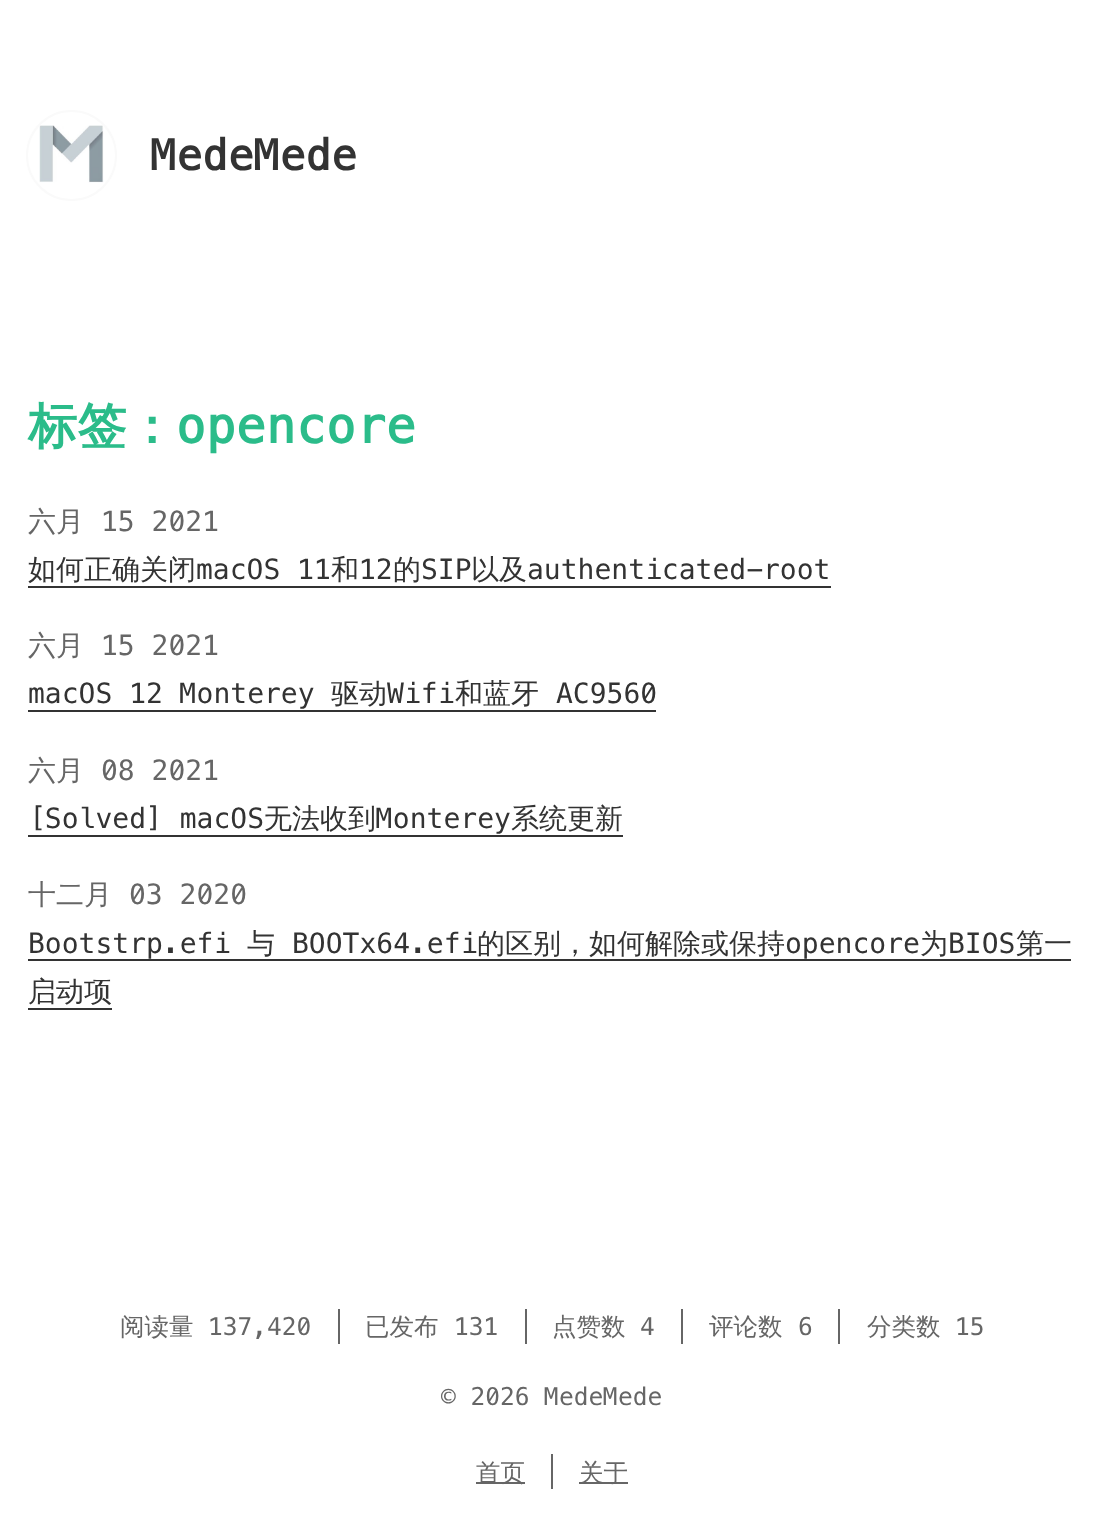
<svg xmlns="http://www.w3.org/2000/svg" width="1104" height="1525">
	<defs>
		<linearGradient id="g1" gradientUnits="userSpaceOnUse" x1="430" y1="578" x2="430" y2="588"><stop offset="0" stop-color="#FFFFFF" /><stop offset="0.83" stop-color="#FFFFFF" /><stop offset="0.83" stop-color="#333333" /><stop offset="1" stop-color="#333333" /></linearGradient>
		<linearGradient id="g2" gradientUnits="userSpaceOnUse" x1="342" y1="702" x2="342" y2="712"><stop offset="0" stop-color="#FFFFFF" /><stop offset="0.83" stop-color="#FFFFFF" /><stop offset="0.83" stop-color="#333333" /><stop offset="1" stop-color="#333333" /></linearGradient>
		<linearGradient id="g3" gradientUnits="userSpaceOnUse" x1="326" y1="826" x2="326" y2="837"><stop offset="0" stop-color="#FFFFFF" /><stop offset="0.83" stop-color="#FFFFFF" /><stop offset="0.83" stop-color="#333333" /><stop offset="1" stop-color="#333333" /></linearGradient>
		<linearGradient id="g4" gradientUnits="userSpaceOnUse" x1="550" y1="950" x2="550" y2="961"><stop offset="0" stop-color="#FFFFFF" /><stop offset="0.83" stop-color="#FFFFFF" /><stop offset="0.83" stop-color="#333333" /><stop offset="1" stop-color="#333333" /></linearGradient>
		<linearGradient id="g5" gradientUnits="userSpaceOnUse" x1="70" y1="999" x2="70" y2="1010"><stop offset="0" stop-color="#FFFFFF" /><stop offset="0.83" stop-color="#FFFFFF" /><stop offset="0.83" stop-color="#333333" /><stop offset="1" stop-color="#333333" /></linearGradient>
	</defs>
	<rect width="100%" height="100%" fill="#FFFFFF" />
	<circle cx="71.5" cy="155.5" r="44.5" fill="none" stroke="#FAFAFA" stroke-width="2" />
	<image x="39" y="125" width="65" height="58" href="assets/img1.png" />
	<text x="151" y="170" font-family="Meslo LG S" font-size="42" font-weight="700" letter-spacing="0.5" fill="#333333">MedeMede</text>
	<text x="28" y="443" font-family="WenQuanYi Zen Hei" font-size="49" font-weight="700" letter-spacing="0.5" fill="#2BBC8A">标签：</text>
	<text x="176" y="443" font-family="Meslo LG S" font-size="49" font-weight="700" letter-spacing="0.5" fill="#2BBC8A">opencore</text>
	<text x="28" y="531" font-family="WenQuanYi Zen Hei" font-size="28" font-weight="500" fill="#666666">六月</text>
	<text x="101" y="531" font-family="Meslo LG S" font-size="28" fill="#666666">15 2021</text>
	<text x="28" y="579" font-family="WenQuanYi Zen Hei" font-size="28" font-weight="500" fill="#333333">如何正确关闭</text>
	<rect x="28" y="586" width="803" height="2" fill="url(#g1)" />
	<text x="196" y="579" font-family="Meslo LG S" font-size="28" fill="#333333">macOS 11</text>
	<text x="331" y="579" font-family="WenQuanYi Zen Hei" font-size="28" font-weight="500" fill="#333333">和</text>
	<text x="359" y="579" font-family="Meslo LG S" font-size="28" fill="#333333">12</text>
	<text x="393" y="579" font-family="WenQuanYi Zen Hei" font-size="28" font-weight="500" fill="#333333">的</text>
	<text x="421" y="579" font-family="Meslo LG S" font-size="28" fill="#333333">SIP</text>
	<text x="471" y="579" font-family="WenQuanYi Zen Hei" font-size="28" font-weight="500" fill="#333333">以及</text>
	<text x="527" y="579" font-family="Meslo LG S" font-size="28" fill="#333333">authenticated-root</text>
	<text x="28" y="655" font-family="WenQuanYi Zen Hei" font-size="28" font-weight="500" fill="#666666">六月</text>
	<text x="101" y="655" font-family="Meslo LG S" font-size="28" fill="#666666">15 2021</text>
	<text x="28" y="703" font-family="Meslo LG S" font-size="28" fill="#333333">macOS 12 Monterey</text>
	<rect x="28" y="710" width="628" height="2" fill="url(#g2)" />
	<text x="331" y="703" font-family="WenQuanYi Zen Hei" font-size="28" font-weight="500" fill="#333333">驱动</text>
	<text x="387" y="703" font-family="Meslo LG S" font-size="28" fill="#333333">Wifi</text>
	<text x="455" y="703" font-family="WenQuanYi Zen Hei" font-size="28" font-weight="500" fill="#333333">和蓝牙</text>
	<text x="556" y="703" font-family="Meslo LG S" font-size="28" fill="#333333">AC9560</text>
	<text x="28" y="780" font-family="WenQuanYi Zen Hei" font-size="28" font-weight="500" fill="#666666">六月</text>
	<text x="101" y="780" font-family="Meslo LG S" font-size="28" fill="#666666">08 2021</text>
	<text x="28" y="828" font-family="Meslo LG S" font-size="28" fill="#333333">[Solved] macOS</text>
	<text x="264" y="828" font-family="WenQuanYi Zen Hei" font-size="28" font-weight="500" fill="#333333">无法收到</text>
	<text x="376" y="828" font-family="Meslo LG S" font-size="28" fill="#333333">Monterey</text>
	<rect x="28" y="835" width="595" height="2" fill="url(#g3)" />
	<text x="511" y="828" font-family="WenQuanYi Zen Hei" font-size="28" font-weight="500" fill="#333333">系统更新</text>
	<text x="28" y="904" font-family="WenQuanYi Zen Hei" font-size="28" font-weight="500" fill="#666666">十二月</text>
	<text x="129" y="904" font-family="Meslo LG S" font-size="28" fill="#666666">03 2020</text>
	<text x="28" y="953" font-family="Meslo LG S" font-size="28" fill="#333333">Bootstrp.efi</text>
	<text x="247" y="953" font-family="WenQuanYi Zen Hei" font-size="28" font-weight="500" fill="#333333">与</text>
	<text x="292" y="953" font-family="Meslo LG S" font-size="28" fill="#333333">BOOTx64.efi</text>
	<text x="477" y="953" font-family="WenQuanYi Zen Hei" font-size="28" font-weight="500" fill="#333333">的区别，如何解除或保持</text>
	<text x="785" y="953" font-family="Meslo LG S" font-size="28" fill="#333333">opencore</text>
	<rect x="28" y="959" width="1043" height="2" fill="url(#g4)" />
	<text x="920" y="953" font-family="WenQuanYi Zen Hei" font-size="28" font-weight="500" fill="#333333">为</text>
	<text x="948" y="953" font-family="Meslo LG S" font-size="28" fill="#333333">BIOS</text>
	<g font-family="WenQuanYi Zen Hei" font-size="28" font-weight="500" fill="#333333">
		<text x="1016" y="953">第一</text>
		<text x="28" y="1001">启动项</text>
	</g>
	<rect x="28" y="1008" width="84" height="2" fill="url(#g5)" />
	<rect x="338" y="1309" width="2" height="35" fill="#666666" />
	<text x="120" y="1335" font-family="WenQuanYi Zen Hei" font-size="24.5" font-weight="500" fill="#666666">阅读量</text>
	<text x="208" y="1335" font-family="Meslo LG S" font-size="24.5" fill="#666666">137,420</text>
	<rect x="525" y="1309" width="2" height="35" fill="#666666" />
	<text x="365" y="1335" font-family="WenQuanYi Zen Hei" font-size="24.5" font-weight="500" fill="#666666">已发布</text>
	<text x="454" y="1335" font-family="Meslo LG S" font-size="24.5" fill="#666666">131</text>
	<rect x="681" y="1309" width="2" height="35" fill="#666666" />
	<text x="552" y="1335" font-family="WenQuanYi Zen Hei" font-size="24.5" font-weight="500" fill="#666666">点赞数</text>
	<text x="640" y="1335" font-family="Meslo LG S" font-size="24.5" fill="#666666">4</text>
	<rect x="838" y="1309" width="2" height="35" fill="#666666" />
	<text x="709" y="1335" font-family="WenQuanYi Zen Hei" font-size="24.5" font-weight="500" fill="#666666">评论数</text>
	<text x="798" y="1335" font-family="Meslo LG S" font-size="24.5" fill="#666666">6</text>
	<text x="867" y="1335" font-family="WenQuanYi Zen Hei" font-size="24.5" font-weight="500" fill="#666666">分类数</text>
	<g font-family="Meslo LG S" font-size="24.5" fill="#666666">
		<text x="955" y="1335">15</text>
		<text x="441" y="1405">© 2026 MedeMede</text>
	</g>
	<rect x="551" y="1454" width="2" height="35" fill="#666666" />
	<rect x="476" y="1482" width="49" height="2" fill="#666666" />
	<text x="476" y="1481" font-family="WenQuanYi Zen Hei" font-size="24.5" font-weight="500" fill="#666666">首页</text>
	<rect x="579" y="1482" width="49" height="2" fill="#666666" />
	<text x="579" y="1481" font-family="WenQuanYi Zen Hei" font-size="24.5" font-weight="500" fill="#666666">关于</text>
</svg>
